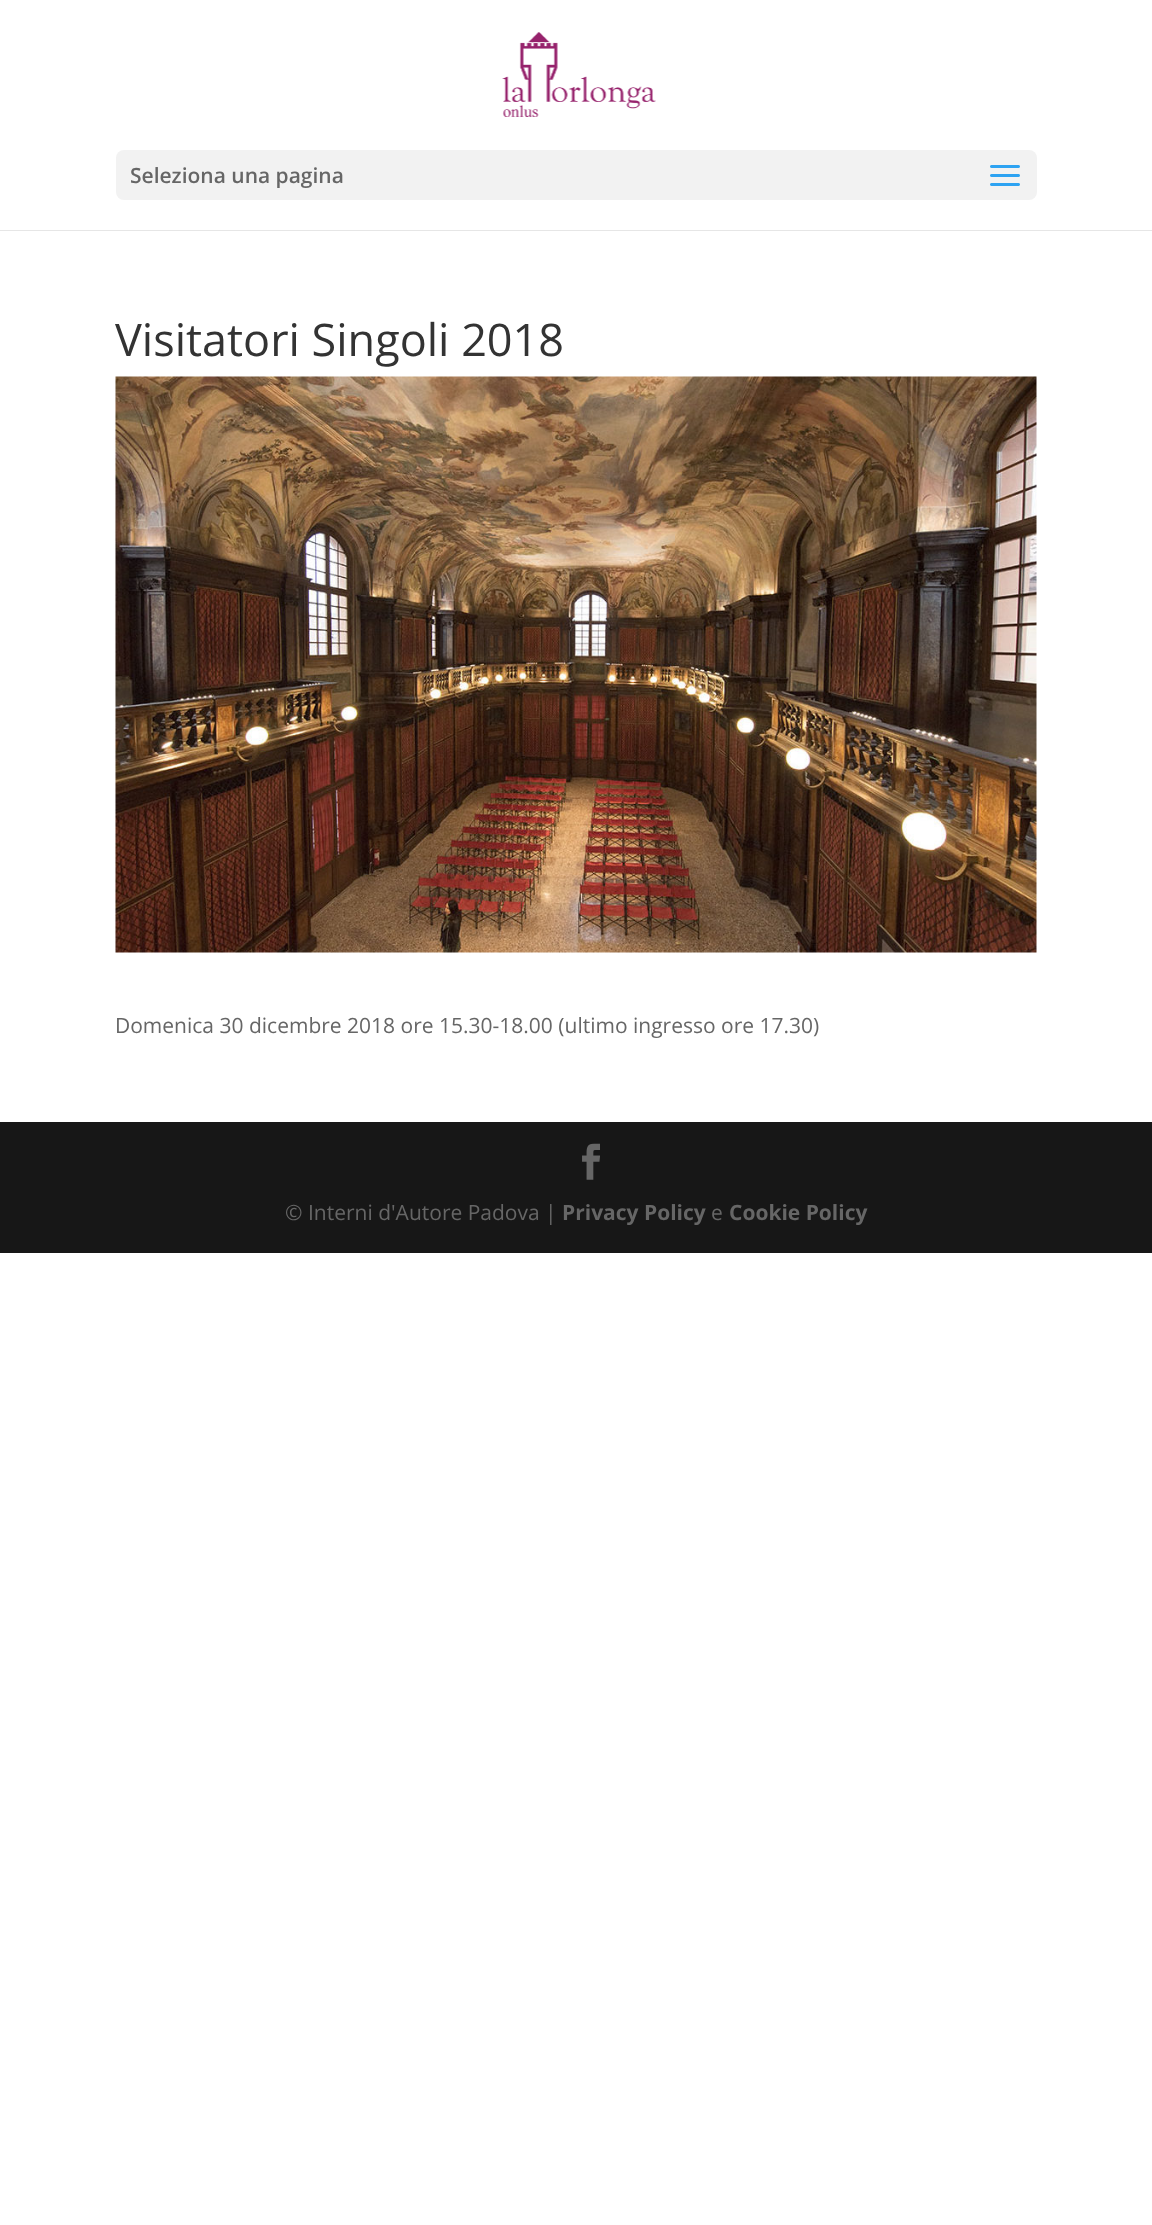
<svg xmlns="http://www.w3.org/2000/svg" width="1152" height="2225">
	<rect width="100%" height="100%" fill="#FFFFFF" />
	<rect x="0" y="230" width="1152" height="1" fill="#E6E6E6" />
	<image x="502" y="32" width="154" height="85" href="assets/img1.png" />
	<rect x="116" y="150" width="921" height="50" rx="8" fill="#F2F2F2" />
	<text x="130" y="183" font-family="Open Sans" font-size="21" font-weight="600" fill="#666666">Seleziona una pagina</text>
	<image x="990" y="165" width="30" height="21" href="assets/img2.png" />
	<text x="115" y="356" font-family="Open Sans" font-size="45" fill="#333333">Visitatori Singoli 2018</text>
	<image x="115" y="376" width="922" height="577" href="assets/img3.png" />
	<text x="115" y="1033" font-family="Open Sans" font-size="21" fill="#666666">Domenica 30 dicembre 2018 ore 15.30-18.00 (ultimo ingresso ore 17.30)</text>
	<rect x="0" y="1122" width="1152" height="131" fill="#171717" />
	<image x="582" y="1143" width="18" height="37" href="assets/img4.png" />
	<text x="285" y="1220" font-family="Open Sans" font-size="21" fill="#666666">© Interni d'Autore Padova |</text>
	<text x="562" y="1220" font-family="Open Sans" font-size="21" font-weight="700" fill="#666666">Privacy Policy</text>
	<text x="711" y="1220" font-family="Open Sans" font-size="21" fill="#666666">e</text>
	<text x="729" y="1220" font-family="Open Sans" font-size="21" font-weight="700" fill="#666666">Cookie Policy</text>
</svg>
